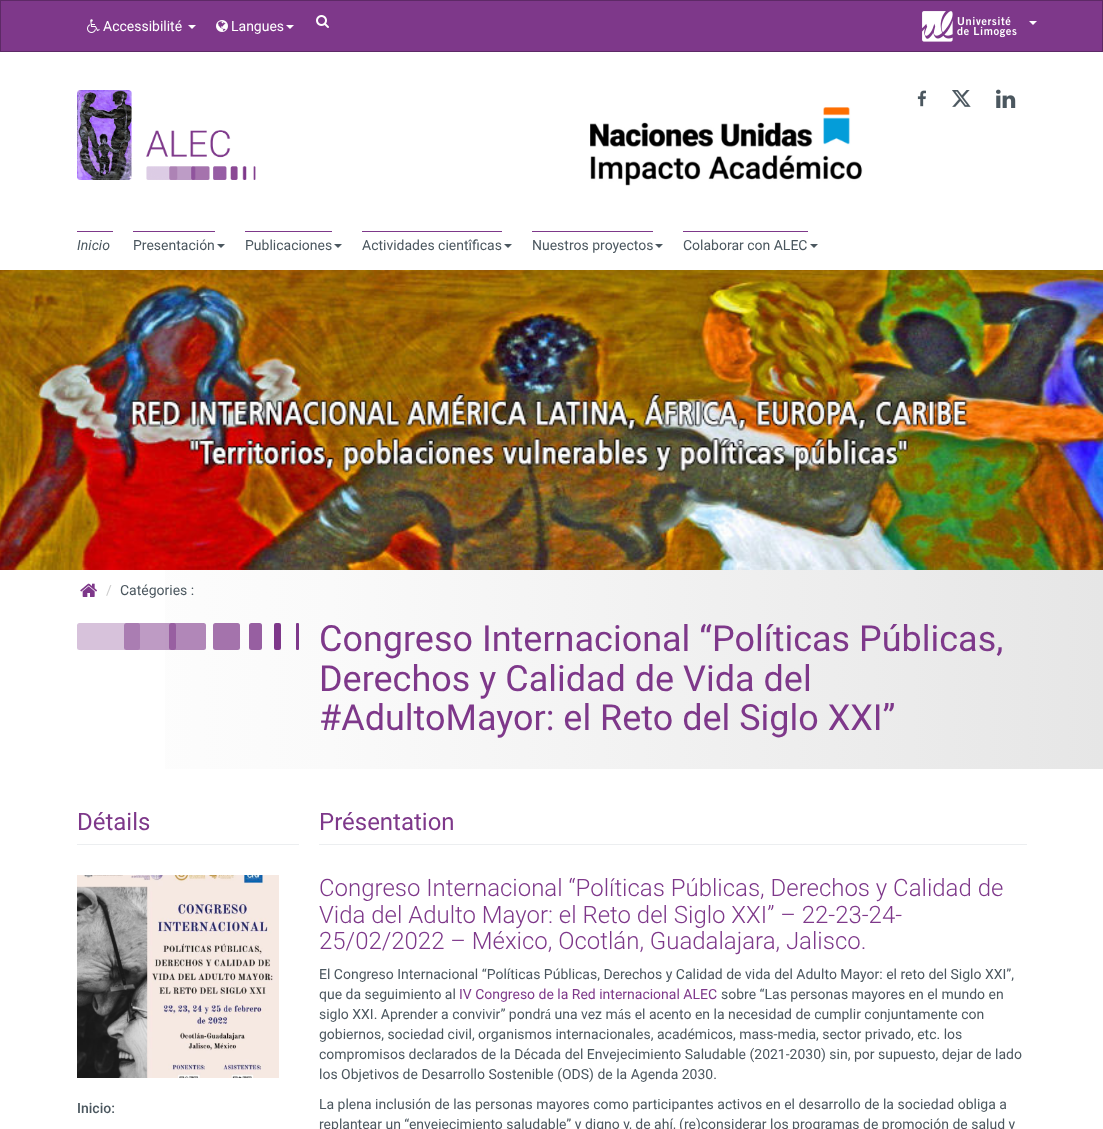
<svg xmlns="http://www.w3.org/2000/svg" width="1103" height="1129">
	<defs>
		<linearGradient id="g1" gradientUnits="userSpaceOnUse" x1="0" y1="670" x2="1103" y2="670"><stop offset="0" stop-color="#FFFFFF" /><stop offset="0.3" stop-color="#FAFAFA" /><stop offset="1" stop-color="#E6E6E6" /></linearGradient>
	</defs>
	<rect width="100%" height="100%" fill="#FFFFFF" />
	<rect x="0.5" y="0.5" width="1102" height="51" fill="#7E388A" stroke="#5D2966" />
	<image x="87" y="19" width="13" height="14" href="assets/img1.png" />
	<text x="103" y="31" font-family="Roboto" font-size="14" fill="#FFFFFF">Accessibilité</text>
	<path d="M188 25H196L192 29Z" fill="#FFFFFF" />
	<image x="216" y="20" width="12" height="12" href="assets/img2.png" />
	<text x="231" y="31" font-family="Roboto" font-size="14" fill="#FFFFFF">Langues</text>
	<path d="M286 25H294L290 29Z" fill="#FFFFFF" />
	<image x="316" y="15" width="13" height="13" href="assets/img3.png" />
	<image x="922" y="11" width="95" height="31" href="assets/img4.png" />
	<path d="M1029 21H1037L1033 25Z" fill="#FFFFFF" />
	<image x="77" y="90" width="179" height="90" href="assets/img5.png" />
	<image x="917" y="90" width="9" height="17" href="assets/img6.png" />
	<image x="952" y="90" width="19" height="17" href="assets/img7.png" />
	<image x="996" y="89" width="20" height="19" href="assets/img8.png" />
	<image x="590" y="107" width="273" height="79" href="assets/img9.png" />
	<text x="77" y="250" font-family="Roboto" font-size="14" font-style="italic" fill="#4B575F">Inicio</text>
	<rect x="77" y="231" width="36" height="1" fill="#7E388A" />
	<text x="133" y="250" font-family="Roboto" font-size="14" fill="#4B575F">Presentación</text>
	<rect x="133" y="231" width="82" height="1" fill="#7E388A" />
	<path d="M217 244H225L221 248Z" fill="#4B575F" />
	<text x="245" y="250" font-family="Roboto" font-size="14" fill="#4B575F">Publicaciones</text>
	<rect x="245" y="231" width="87" height="1" fill="#7E388A" />
	<path d="M334 244H342L338 248Z" fill="#4B575F" />
	<text x="362" y="250" font-family="Roboto" font-size="14" fill="#4B575F">Actividades cientîficas</text>
	<rect x="362" y="231" width="140" height="1" fill="#7E388A" />
	<path d="M504 244H512L508 248Z" fill="#4B575F" />
	<text x="532" y="250" font-family="Roboto" font-size="14" fill="#4B575F">Nuestros proyectos</text>
	<rect x="532" y="231" width="121" height="1" fill="#7E388A" />
	<path d="M655 244H663L659 248Z" fill="#4B575F" />
	<text x="683" y="250" font-family="Roboto" font-size="14" fill="#4B575F">Colaborar con ALEC</text>
	<rect x="683" y="231" width="125" height="1" fill="#7E388A" />
	<path d="M810 244H818L814 248Z" fill="#4B575F" />
	<image x="0" y="270" width="1103" height="300" href="assets/img10.png" />
	<rect x="165" y="570" width="938" height="199" fill="url(#g1)" />
	<image x="80" y="583" width="17" height="14" href="assets/img11.png" />
	<text x="106" y="595" font-family="Roboto" font-size="14" fill="#CCCCCC">/</text>
	<text x="120" y="595" font-family="Roboto" font-size="14" fill="#4B575F">Catégories :</text>
	<rect x="77" y="623" width="63" height="27" rx="2.5" fill="#D7C2DB" />
	<rect x="124" y="623" width="52" height="27" rx="2.5" fill="#7E388A" fill-opacity="0.5" />
	<rect x="169" y="623" width="37" height="27" rx="2.5" fill="#7E388A" fill-opacity="0.6" />
	<rect x="213" y="623" width="27" height="27" rx="2.5" fill="#A473AC" />
	<rect x="249" y="623" width="13" height="27" rx="2.5" fill="#975FA1" />
	<rect x="274" y="623" width="7" height="27" rx="2" fill="#7E388A" />
	<rect x="296" y="623" width="3" height="27" rx="1" fill="#7E388A" />
	<g font-family="Roboto" font-size="36" fill="#7E388A">
		<text x="319" y="651">Congreso Internacional “Políticas Públicas,</text>
		<text x="319" y="691">Derechos y Calidad de Vida del</text>
		<text x="319" y="730">#AdultoMayor: el Reto del Siglo XXI”</text>
	</g>
	<rect x="77" y="844" width="222" height="1" fill="#ECEEF0" />
	<text x="77" y="830" font-family="Roboto" font-size="24" fill="#7E388A">Détails</text>
	<image x="77" y="875" width="202" height="203" href="assets/img12.png" />
	<text x="77" y="1113" font-family="Roboto" font-size="14" font-weight="500" fill="#4B575F">Inicio:</text>
	<rect x="319" y="844" width="708" height="1" fill="#ECEEF0" />
	<text x="319" y="830" font-family="Roboto" font-size="24" fill="#7E388A">Présentation</text>
	<g font-family="Roboto" font-size="24" font-weight="300" fill="#7E388A">
		<text x="319" y="896">Congreso Internacional “Políticas Públicas, Derechos y Calidad de</text>
		<text x="319" y="923">Vida del Adulto Mayor: el Reto del Siglo XXI” – 22-23-24-</text>
		<text x="319" y="949">25/02/2022 – México, Ocotlán, Guadalajara, Jalisco.</text>
	</g>
	<g font-family="Roboto" font-size="14" fill="#4B575F">
		<text x="319" y="979">El Congreso Internacional “Políticas Públicas, Derechos y Calidad de vida del Adulto Mayor: el reto del Siglo XXI”,</text>
		<text x="319" y="999">que da seguimiento al</text>
	</g>
	<text x="459" y="999" font-family="Roboto" font-size="14" fill="#7E388A">IV Congreso de la Red internacional ALEC</text>
	<g font-family="Roboto" font-size="14" fill="#4B575F">
		<text x="721" y="999">sobre “Las personas mayores en el mundo en</text>
		<text x="319" y="1019">siglo XXI. Aprender a convivir” pondrá una vez más el acento en la necesidad de cumplir conjuntamente con</text>
		<text x="319" y="1039">gobiernos, sociedad civil, organismos internacionales, académicos, mass-media, sector privado, etc. los</text>
		<text x="319" y="1059">compromisos declarados de la Década del Envejecimiento Saludable (2021-2030) sin, por supuesto, dejar de lado</text>
		<text x="319" y="1079">los Objetivos de Desarrollo Sostenible (ODS) de la Agenda 2030.</text>
		<text x="319" y="1109">La plena inclusión de las personas mayores como participantes activos en el desarrollo de la sociedad obliga a</text>
		<text x="319" y="1129">replantear un “envejecimiento saludable” y digno y, de ahí, (re)considerar los programas de promoción de salud y</text>
	</g>
</svg>
